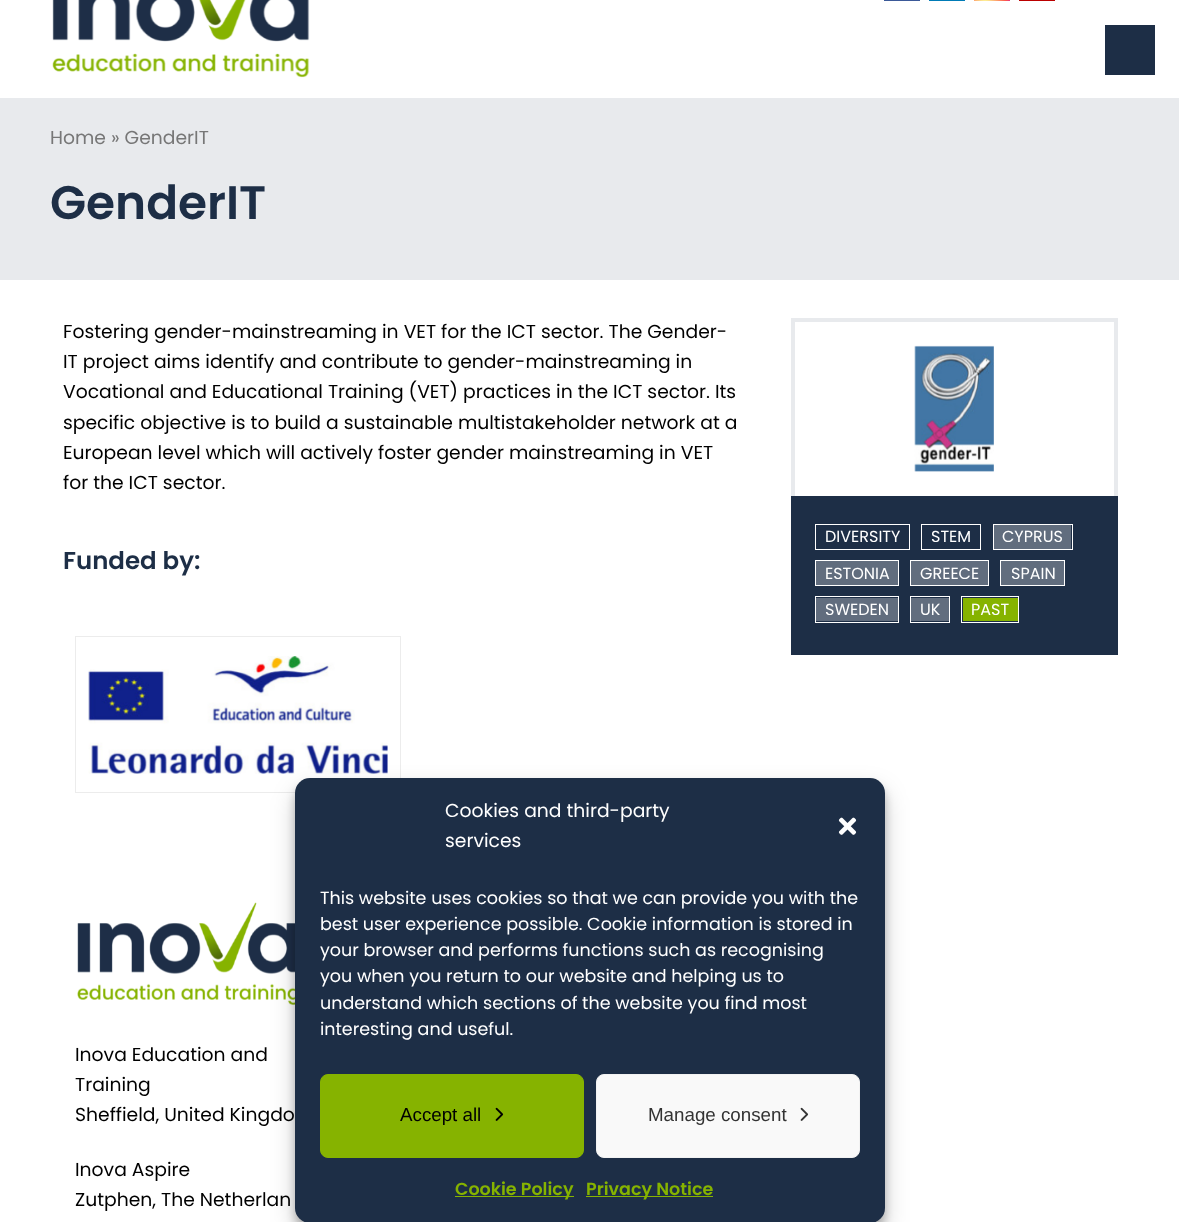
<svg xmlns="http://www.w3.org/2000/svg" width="1179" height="1222">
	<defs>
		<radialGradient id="g1" gradientUnits="userSpaceOnUse" cx="985" cy="3.8" r="46"><stop offset="0" stop-color="#FDF497" /><stop offset="0.05" stop-color="#FDF497" /><stop offset="0.45" stop-color="#FD5949" /><stop offset="0.6" stop-color="#D6249F" /><stop offset="0.9" stop-color="#285AEB" /></radialGradient>
	</defs>
	<rect width="100%" height="100%" fill="#FFFFFF" />
	<image x="52" y="0" width="258" height="78" href="assets/img1.png" />
	<rect x="884" y="0" width="36" height="1" fill="#3B5998" />
	<rect x="929" y="0" width="36" height="1" fill="#007BB6" />
	<rect x="974" y="0" width="36" height="1" fill="url(#g1)" />
	<rect x="1019" y="0" width="36" height="1" fill="#BB0000" />
	<rect x="1105" y="25" width="50" height="50" fill="#1D2E46" />
	<rect x="0" y="98" width="1179" height="182" fill="#E8EAED" />
	<text x="50" y="144" font-family="Poppins" font-size="18.75" fill="#777777">Home » GenderIT</text>
	<text x="50" y="219" font-family="Poppins" font-size="47" font-weight="600" fill="#1D2E46">GenderIT</text>
	<g font-family="Poppins" font-size="18.75" fill="#000000">
		<text x="63" y="338">Fostering gender-mainstreaming in VET for the ICT sector. The Gender-</text>
		<text x="63" y="368">IT project aims identify and contribute to gender-mainstreaming in</text>
		<text x="63" y="398">Vocational and Educational Training (VET) practices in the ICT sector. Its</text>
		<text x="63" y="429">specific objective is to build a sustainable multistakeholder network at a</text>
		<text x="63" y="459">European level which will actively foster gender mainstreaming in VET</text>
		<text x="63" y="489">for the ICT sector.</text>
	</g>
	<text x="63" y="569" font-family="Poppins" font-size="24.5" font-weight="600" fill="#1D2E46">Funded by:</text>
	<rect x="791" y="318" width="327" height="4" fill="#E8EAED" />
	<rect x="1114" y="318" width="4" height="178" fill="#E8EAED" />
	<rect x="791" y="318" width="4" height="178" fill="#E8EAED" />
	<image x="914" y="345" width="80" height="127" href="assets/img2.png" />
	<rect x="791" y="496" width="327" height="159" fill="#1D2E46" />
	<rect x="815.5" y="524.5" width="94" height="25" fill="none" stroke="#FFFFFF" />
	<text x="825" y="542" font-family="Poppins" font-size="16" fill="#FFFFFF">DIVERSITY</text>
	<rect x="921.5" y="524.5" width="59" height="25" fill="none" stroke="#FFFFFF" />
	<text x="931" y="542" font-family="Poppins" font-size="16" fill="#FFFFFF">STEM</text>
	<rect x="994" y="525" width="77" height="24" fill="#616D7E" />
	<rect x="993.5" y="524.5" width="79" height="25" fill="none" stroke="#FFFFFF" />
	<text x="1002" y="542" font-family="Poppins" font-size="16" fill="#FFFFFF">CYPRUS</text>
	<rect x="816" y="561" width="82" height="24" fill="#616D7E" />
	<rect x="815.5" y="560.5" width="83" height="25" fill="none" stroke="#FFFFFF" />
	<text x="825" y="579" font-family="Poppins" font-size="16" fill="#FFFFFF">ESTONIA</text>
	<rect x="911" y="561" width="77" height="24" fill="#616D7E" />
	<rect x="910.5" y="560.5" width="78" height="25" fill="none" stroke="#FFFFFF" />
	<text x="920" y="579" font-family="Poppins" font-size="16" fill="#FFFFFF">GREECE</text>
	<rect x="1001" y="561" width="63" height="24" fill="#616D7E" />
	<rect x="1000.5" y="560.5" width="64" height="25" fill="none" stroke="#FFFFFF" />
	<text x="1011" y="579" font-family="Poppins" font-size="16" fill="#FFFFFF">SPAIN</text>
	<rect x="816" y="598" width="82" height="23" fill="#616D7E" />
	<rect x="815.5" y="596.5" width="83" height="26" fill="none" stroke="#FFFFFF" />
	<text x="825" y="615" font-family="Poppins" font-size="16" fill="#FFFFFF">SWEDEN</text>
	<rect x="911" y="598" width="38" height="23" fill="#616D7E" />
	<rect x="910.5" y="596.5" width="39" height="26" fill="none" stroke="#FFFFFF" />
	<text x="920" y="615" font-family="Poppins" font-size="16" fill="#FFFFFF">UK</text>
	<rect x="963" y="598" width="55" height="23" fill="#86B300" />
	<rect x="961.5" y="596.5" width="57" height="26" fill="none" stroke="#FFFFFF" />
	<text x="971" y="615" font-family="Poppins" font-size="16" fill="#FFFFFF">PAST</text>
	<rect x="75.5" y="636.5" width="325" height="156" fill="none" stroke="#ECECEC" />
	<image x="88" y="656" width="300" height="118" href="assets/img3.png" />
	<image x="77" y="902" width="218" height="103" href="assets/img4.png" />
	<g font-family="Poppins" font-size="18.75" fill="#000000">
		<text x="75" y="1061">Inova Education and</text>
		<text x="75" y="1091">Training</text>
		<text x="75" y="1121">Sheffield, United Kingdo</text>
		<text x="75" y="1176">Inova Aspire</text>
		<text x="75" y="1206">Zutphen, The Netherlan</text>
	</g>
	<rect x="295" y="785" width="590" height="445" rx="15" fill="#000000" fill-opacity="0.23" filter="blur(4px)" />
	<rect x="295" y="790" width="590" height="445" rx="15" fill="#000000" fill-opacity="0.19" filter="blur(12.5px)" />
	<rect x="295" y="778" width="590" height="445" rx="15" fill="#1D2E46" />
	<g font-family="Poppins" font-size="18.75" fill="#FFFFFF">
		<text x="445" y="817">Cookies and third-party</text>
		<text x="445" y="847">services</text>
	</g>
	<image x="838" y="817" width="19" height="18" href="assets/img5.png" />
	<g font-family="Poppins" font-size="17.5" fill="#FFFFFF">
		<text x="320" y="904">This website uses cookies so that we can provide you with the</text>
		<text x="320" y="930">best user experience possible. Cookie information is stored in</text>
		<text x="320" y="956">your browser and performs functions such as recognising</text>
		<text x="320" y="982">you when you return to our website and helping us to</text>
		<text x="320" y="1009">understand which sections of the website you find most</text>
		<text x="320" y="1035">interesting and useful.</text>
	</g>
	<rect x="320.5" y="1074.5" width="263" height="83" rx="7.5" fill="#86B300" stroke="#86B300" />
	<text x="400" y="1121" font-family="Liberation Sans" font-size="18.75" fill="#000000">Accept all</text>
	<image x="495" y="1107" width="9" height="14" href="assets/img6.png" />
	<rect x="596.5" y="1074.5" width="263" height="83" rx="7.5" fill="#F9F9F9" stroke="#F2F2F2" />
	<text x="648" y="1121" font-family="Liberation Sans" font-size="18.75" fill="#333333">Manage consent</text>
	<image x="800" y="1107" width="9" height="14" href="assets/img7.png" />
	<rect x="455" y="1196" width="119" height="1" fill="#86B300" />
	<text x="455" y="1195" font-family="Poppins" font-size="17.5" font-weight="600" fill="#86B300">Cookie Policy</text>
	<rect x="586" y="1196" width="127" height="1" fill="#86B300" />
	<text x="586" y="1195" font-family="Poppins" font-size="17.5" font-weight="600" fill="#86B300">Privacy Notice</text>
</svg>
